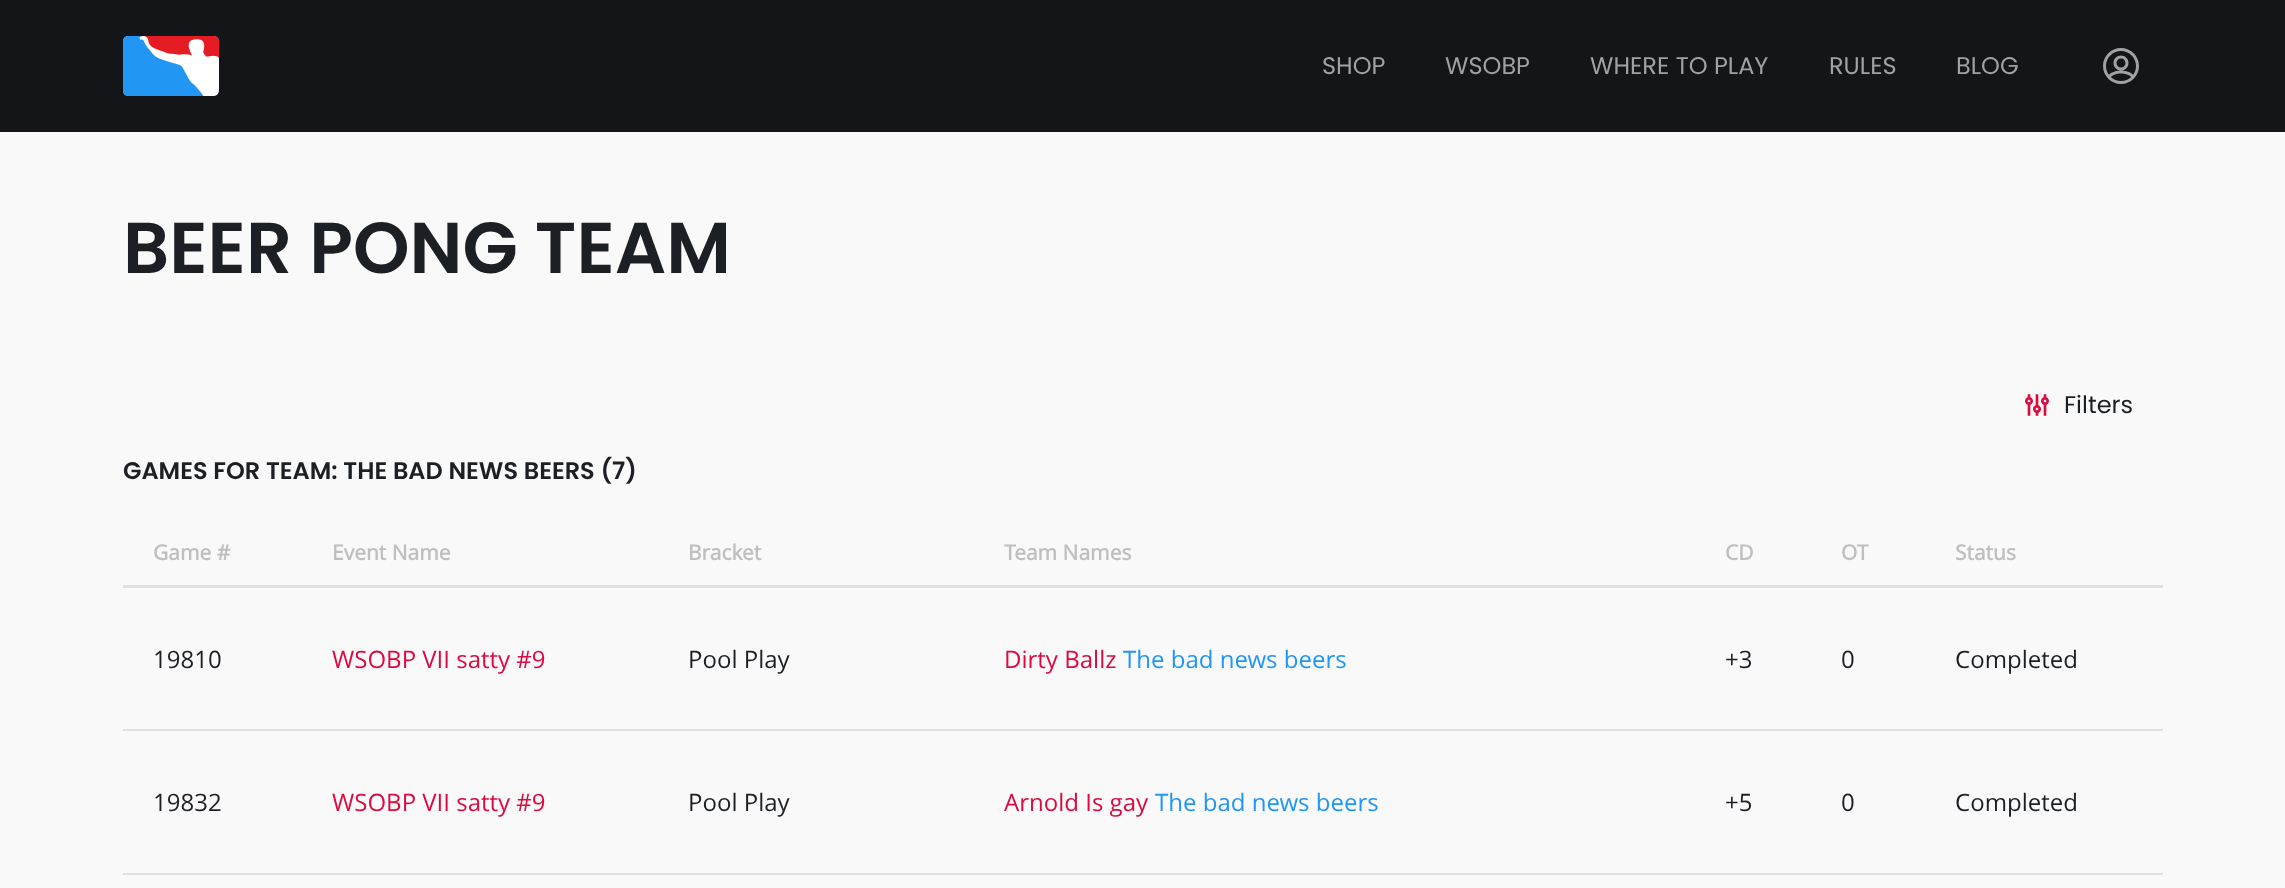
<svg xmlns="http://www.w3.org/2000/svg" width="2285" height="888">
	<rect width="100%" height="100%" fill="#141519" />
	<image x="123" y="36" width="96" height="60" href="assets/img1.png" />
	<g font-family="Poppins" font-size="24" fill="#A1A1A3">
		<text x="1322" y="74">SHOP</text>
		<text x="1445" y="74">WSOBP</text>
		<text x="1590" y="74">WHERE TO PLAY</text>
		<text x="1829" y="74">RULES</text>
		<text x="1956" y="74">BLOG</text>
	</g>
	<image x="2103" y="48" width="36" height="36" href="assets/img2.png" />
	<rect x="0" y="132" width="2285" height="756" fill="#F9F9F9" />
	<text x="123" y="273" font-family="Poppins" font-size="72" font-weight="600" fill="#1C1F24">BEER PONG TEAM</text>
	<image x="2025" y="394" width="24" height="22" href="assets/img3.png" />
	<text x="2064" y="413" font-family="Poppins" font-size="24" fill="#1C1F24">Filters</text>
	<text x="123" y="479" font-family="Poppins" font-size="24" font-weight="600" fill="#1C1F24">GAMES FOR TEAM: THE BAD NEWS BEERS (7)</text>
	<g font-family="Open Sans" font-size="21" font-weight="700" fill="#BFBFC0">
		<text x="153" y="560">Game #</text>
		<text x="332" y="560">Event Name</text>
		<text x="688" y="560">Bracket</text>
		<text x="1004" y="560">Team Names</text>
		<text x="1725" y="560">CD</text>
		<text x="1841" y="560">OT</text>
	</g>
	<rect x="123" y="585" width="2040" height="3" fill="#E0E0E0" />
	<text x="1955" y="560" font-family="Open Sans" font-size="21" font-weight="700" fill="#BFBFC0">Status</text>
	<text x="153" y="668" font-family="Open Sans" font-size="24" fill="#1C1F24">19810</text>
	<text x="332" y="668" font-family="Open Sans" font-size="24" fill="#DB0A40">WSOBP VII satty #9</text>
	<text x="688" y="668" font-family="Open Sans" font-size="24" fill="#1C1F24">Pool Play</text>
	<text x="1004" y="668" font-family="Open Sans" font-size="24" fill="#DB0A40">Dirty Ballz</text>
	<text x="1123" y="668" font-family="Open Sans" font-size="24" fill="#2196F3">The bad news beers</text>
	<g font-family="Open Sans" font-size="24" fill="#1C1F24">
		<text x="1725" y="668">+3</text>
		<text x="1841" y="668">0</text>
	</g>
	<rect x="123" y="729" width="2040" height="2" fill="#E0E0E0" />
	<g font-family="Open Sans" font-size="24" fill="#1C1F24">
		<text x="1955" y="668">Completed</text>
		<text x="153" y="811">19832</text>
	</g>
	<text x="332" y="811" font-family="Open Sans" font-size="24" fill="#DB0A40">WSOBP VII satty #9</text>
	<text x="688" y="811" font-family="Open Sans" font-size="24" fill="#1C1F24">Pool Play</text>
	<text x="1004" y="811" font-family="Open Sans" font-size="24" fill="#DB0A40">Arnold Is gay</text>
	<text x="1155" y="811" font-family="Open Sans" font-size="24" fill="#2196F3">The bad news beers</text>
	<g font-family="Open Sans" font-size="24" fill="#1C1F24">
		<text x="1725" y="811">+5</text>
		<text x="1841" y="811">0</text>
	</g>
	<rect x="123" y="873" width="2040" height="2" fill="#E0E0E0" />
	<text x="1955" y="811" font-family="Open Sans" font-size="24" fill="#1C1F24">Completed</text>
</svg>
